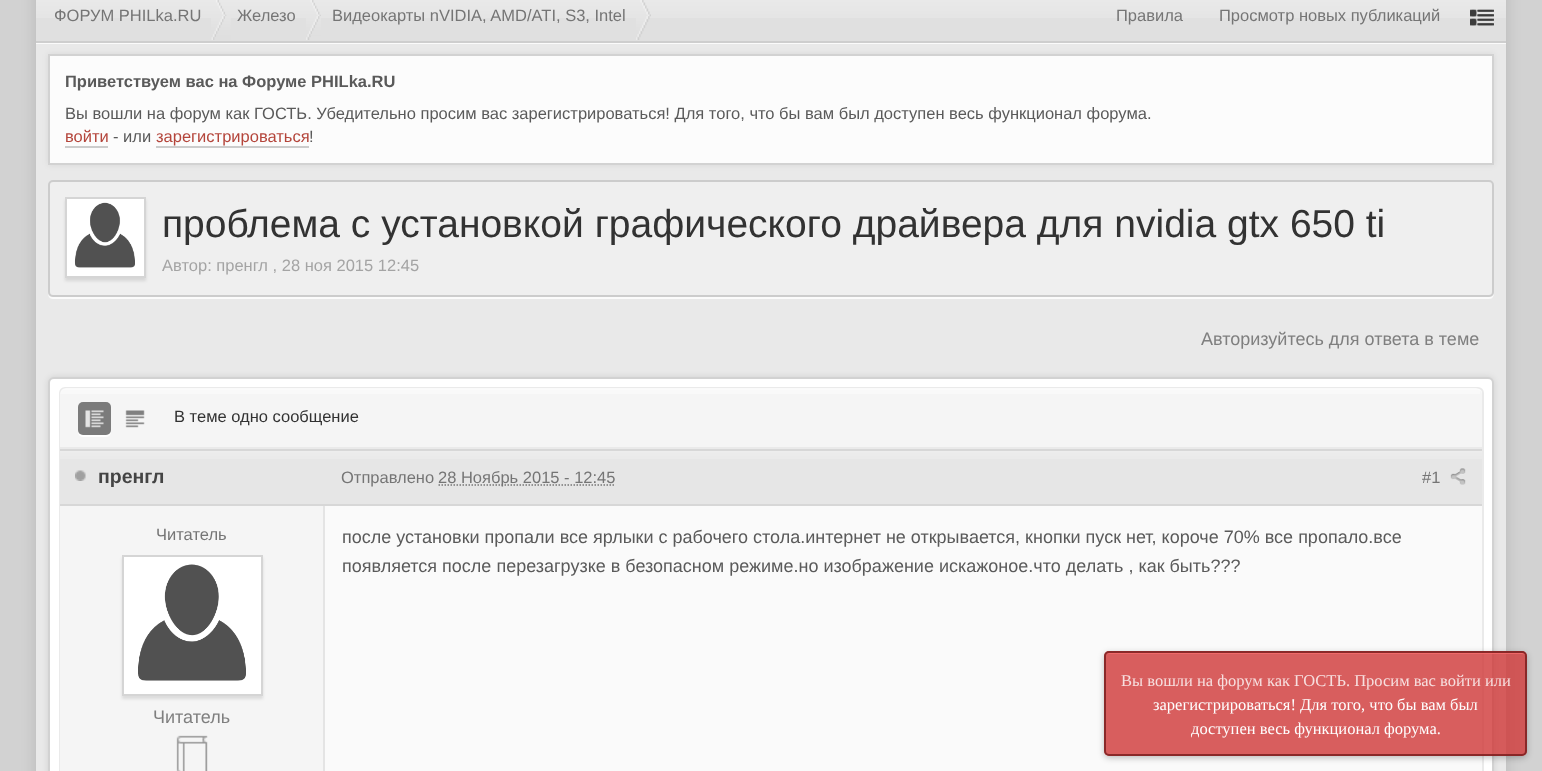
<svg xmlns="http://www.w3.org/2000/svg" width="1542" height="771">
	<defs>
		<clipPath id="clip1"><path d="M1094 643H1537V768H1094ZM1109 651H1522C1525 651 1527 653 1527 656V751C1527 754 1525 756 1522 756H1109C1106 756 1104 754 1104 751V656C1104 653 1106 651 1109 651Z" clip-rule="evenodd" /></clipPath>
	</defs>
	<rect width="100%" height="100%" fill="#D2D2D2" />
	<rect x="36" y="-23" width="1470" height="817" fill="#000000" fill-opacity="0.12" filter="blur(7.5px)" />
	<rect x="36" y="44" width="1470" height="727" fill="#E9E9E9" />
	<rect x="36" y="43" width="1470" height="1" fill="#FBFBFB" />
	<rect x="36" y="18" width="1470" height="23" fill="#E0E0E0" />
	<image x="36" y="0" width="1470" height="18" href="assets/img1.png" />
	<rect x="36" y="41" width="1470" height="2" fill="#CECECE" />
	<image x="211" y="0" width="16" height="40" href="assets/img2.png" />
	<text x="54" y="21" font-family="Liberation Sans" font-size="16.5" fill="#757575">ФОРУМ PHILka.RU</text>
	<image x="214" y="0" width="17" height="40" href="assets/img3.png" />
	<image x="306" y="0" width="15" height="40" href="assets/img4.png" />
	<text x="237" y="21" font-family="Liberation Sans" font-size="16.5" fill="#757575">Железо</text>
	<image x="310" y="0" width="11" height="36" href="assets/img5.png" />
	<image x="636" y="0" width="15" height="40" href="assets/img6.png" />
	<g font-family="Liberation Sans" font-size="16.5" fill="#757575">
		<text x="332" y="21">Видеокарты nVIDIA, AMD/ATI, S3, Intel</text>
		<text x="1116" y="21">Правила</text>
		<text x="1219" y="21">Просмотр новых публикаций</text>
	</g>
	<image x="1470" y="9" width="24" height="17" href="assets/img7.png" />
	<image x="1470" y="9" width="24" height="17" href="assets/img8.png" />
	<rect x="48" y="54" width="1446" height="111" fill="#000000" fill-opacity="0.07" filter="blur(3px)" />
	<rect x="49" y="55" width="1444" height="109" fill="#FCFCFC" stroke="#D2D2D2" stroke-width="2" />
	<text x="65" y="87" font-family="Liberation Sans" font-size="16.5" font-weight="700" fill="#5A5A5A">Приветствуем вас на Форуме PHILka.RU</text>
	<text x="65" y="119" font-family="Liberation Sans" font-size="16.5" fill="#5A5A5A">Вы вошли на форум как ГОСТЬ. Убедительно просим вас зарегистрироваться! Для того, что бы вам был доступен весь функционал форума.</text>
	<text x="65" y="142" font-family="Liberation Sans" font-size="16.5" fill="#B4453B">войти</text>
	<rect x="65" y="146" width="43" height="2" fill="#CCCCCC" />
	<text x="113" y="142" font-family="Liberation Sans" font-size="16.5" fill="#5A5A5A">- или</text>
	<text x="156" y="142" font-family="Liberation Sans" font-size="16.5" fill="#B4453B">зарегистрироваться</text>
	<rect x="156" y="146" width="153" height="2" fill="#CCCCCC" />
	<text x="309" y="142" font-family="Liberation Sans" font-size="16.5" fill="#5A5A5A">!</text>
	<path d="M48 292C48 296 49 299 53 299H1489C1493 299 1494 296 1494 292C1494 295 1492 297 1490 297H52C50 297 48 295 48 292Z" fill="#FBFBFB" />
	<rect x="49" y="181" width="1444" height="115" rx="4" fill="#EFEFEF" stroke="#CCCCCC" stroke-width="2" />
	<rect x="65" y="200" width="81" height="81" fill="#000000" fill-opacity="0.1" filter="blur(1.5px)" />
	<rect x="66" y="198" width="79" height="79" fill="#FFFFFF" stroke="#D5D5D5" stroke-width="2" />
	<image x="74" y="202" width="61" height="66" href="assets/img9.png" />
	<text x="162" y="237" font-family="Liberation Sans" font-size="39" fill="#323232">проблема с установкой графического драйвера для nvidia gtx 650 ti</text>
	<text x="162" y="271" font-family="Liberation Sans" font-size="16.5" fill="#A4A4A4">Автор: пренгл , 28 ноя 2015 12:45</text>
	<text x="1201" y="345" font-family="Liberation Sans" font-size="18" fill="#7F7F7F">Авторизуйтесь для ответа в теме</text>
	<rect x="48" y="377" width="1446" height="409" rx="6" fill="#000000" fill-opacity="0.1" filter="blur(3px)" />
	<rect x="49" y="378" width="1444" height="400" rx="5" fill="#FFFFFF" stroke="#D2D2D2" stroke-width="2" />
	<rect x="60" y="388" width="1423" height="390" rx="5" fill="#FAFAFA" stroke="#EAEAEA" stroke-width="2" />
	<path d="M66 389H1476C1479.5 389 1482 391.5 1482 395V449H60V395C60 391.5 62.5 389 66 389Z" fill="#F5F5F5" />
	<image x="60" y="388" width="1420" height="6" href="assets/img10.png" />
	<rect x="60" y="447" width="1422" height="2" fill="#EAEAEA" />
	<path d="M78 430.5C78 437 81.5 437 87 437H102C107.5 437 111 437 111 430.5C111 433 109 435 106.5 435H82.5C80 435 78 433 78 430.5Z" fill="#FFFFFF" />
	<rect x="78" y="402" width="33" height="33" rx="5" fill="#7B7B7B" />
	<image x="85" y="410" width="19" height="18" href="assets/img11.png" />
	<image x="125" y="410" width="20" height="18" href="assets/img12.png" />
	<text x="174" y="422" font-family="Liberation Sans" font-size="16.5" fill="#323232">В теме одно сообщение</text>
	<rect x="60" y="506" width="263" height="265" fill="#F5F5F5" />
	<rect x="60" y="451" width="1422" height="53" fill="#E6E6E6" />
	<image x="60" y="451" width="1422" height="8" href="assets/img13.png" />
	<rect x="60" y="449" width="1422" height="2" fill="#D7D7D7" />
	<rect x="60" y="504" width="1422" height="2" fill="#D7D7D7" />
	<image x="75" y="470" width="11" height="11" href="assets/img14.png" />
	<text x="98" y="483" font-family="Liberation Sans" font-size="19.5" font-weight="700" fill="#444444">пренгл</text>
	<text x="341" y="483" font-family="Liberation Sans" font-size="16.5" fill="#757575">Отправлено</text>
	<path d="M438.5 485H615.5" fill="none" stroke="#777777" stroke-width="1.5" stroke-dasharray="1.5 1.5" />
	<g font-family="Liberation Sans" font-size="16.5" fill="#757575">
		<text x="438" y="483">28 Ноябрь 2015 - 12:45</text>
		<text x="1422" y="483">#1</text>
	</g>
	<image x="1450" y="468" width="16" height="17" href="assets/img15.png" />
	<text x="156" y="540" font-family="Liberation Sans" font-size="16.5" fill="#757575">Читатель</text>
	<rect x="122" y="558" width="141" height="141" fill="#000000" fill-opacity="0.1" filter="blur(1.5px)" />
	<rect x="123" y="556" width="139" height="139" fill="#FFFFFF" stroke="#D5D5D5" stroke-width="2" />
	<image x="138" y="564" width="108" height="117" href="assets/img16.png" />
	<text x="153" y="723" font-family="Liberation Sans" font-size="18" fill="#7F7F7F">Читатель</text>
	<image x="176" y="735" width="32" height="36" href="assets/img17.png" />
	<rect x="323" y="506" width="2" height="265" fill="#E4E4E4" />
	<g font-family="Liberation Sans" font-size="18" fill="#5A5A5A">
		<text x="342" y="543">после установки пропали все ярлыки с рабочего стола.интернет не открывается, кнопки пуск нет, короче 70% все пропало.все</text>
		<text x="342" y="572">появляется после перезагрузке в безопасном режиме.но изображение искажоное.что делать , как быть???</text>
	</g>
	<g clip-path="url(#clip1)">
		<rect x="1104" y="653" width="423" height="105" rx="5" fill="#000000" fill-opacity="0.24" filter="blur(3px)" />
	</g>
	<rect x="1104" y="651" width="423" height="105" rx="5" fill="#CF3737" fill-opacity="0.8" />
	<path d="M1108 654H1522C1524 654 1526 655 1526 657C1526 655 1525 653 1523 653H1109C1107 653 1106 655 1106 657C1106 655 1107 654 1108 654Z" fill="#F66C6C" fill-opacity="0.8" />
	<rect x="1105" y="652" width="421" height="103" rx="4" fill="none" stroke="#771B1B" stroke-opacity="0.8" stroke-width="2" />
	<text x="1121" y="686" font-family="Liberation Serif" font-size="16.5" fill="#F7DFDF">Вы вошли на форум как ГОСТЬ. Просим вас войти или</text>
	<g font-family="Liberation Serif" font-size="16.5" fill="#FEFEFE">
		<text x="1153" y="710">зарегистрироваться! Для того, что бы вам был</text>
		<text x="1191" y="734">доступен весь функционал форума.</text>
	</g>
</svg>
